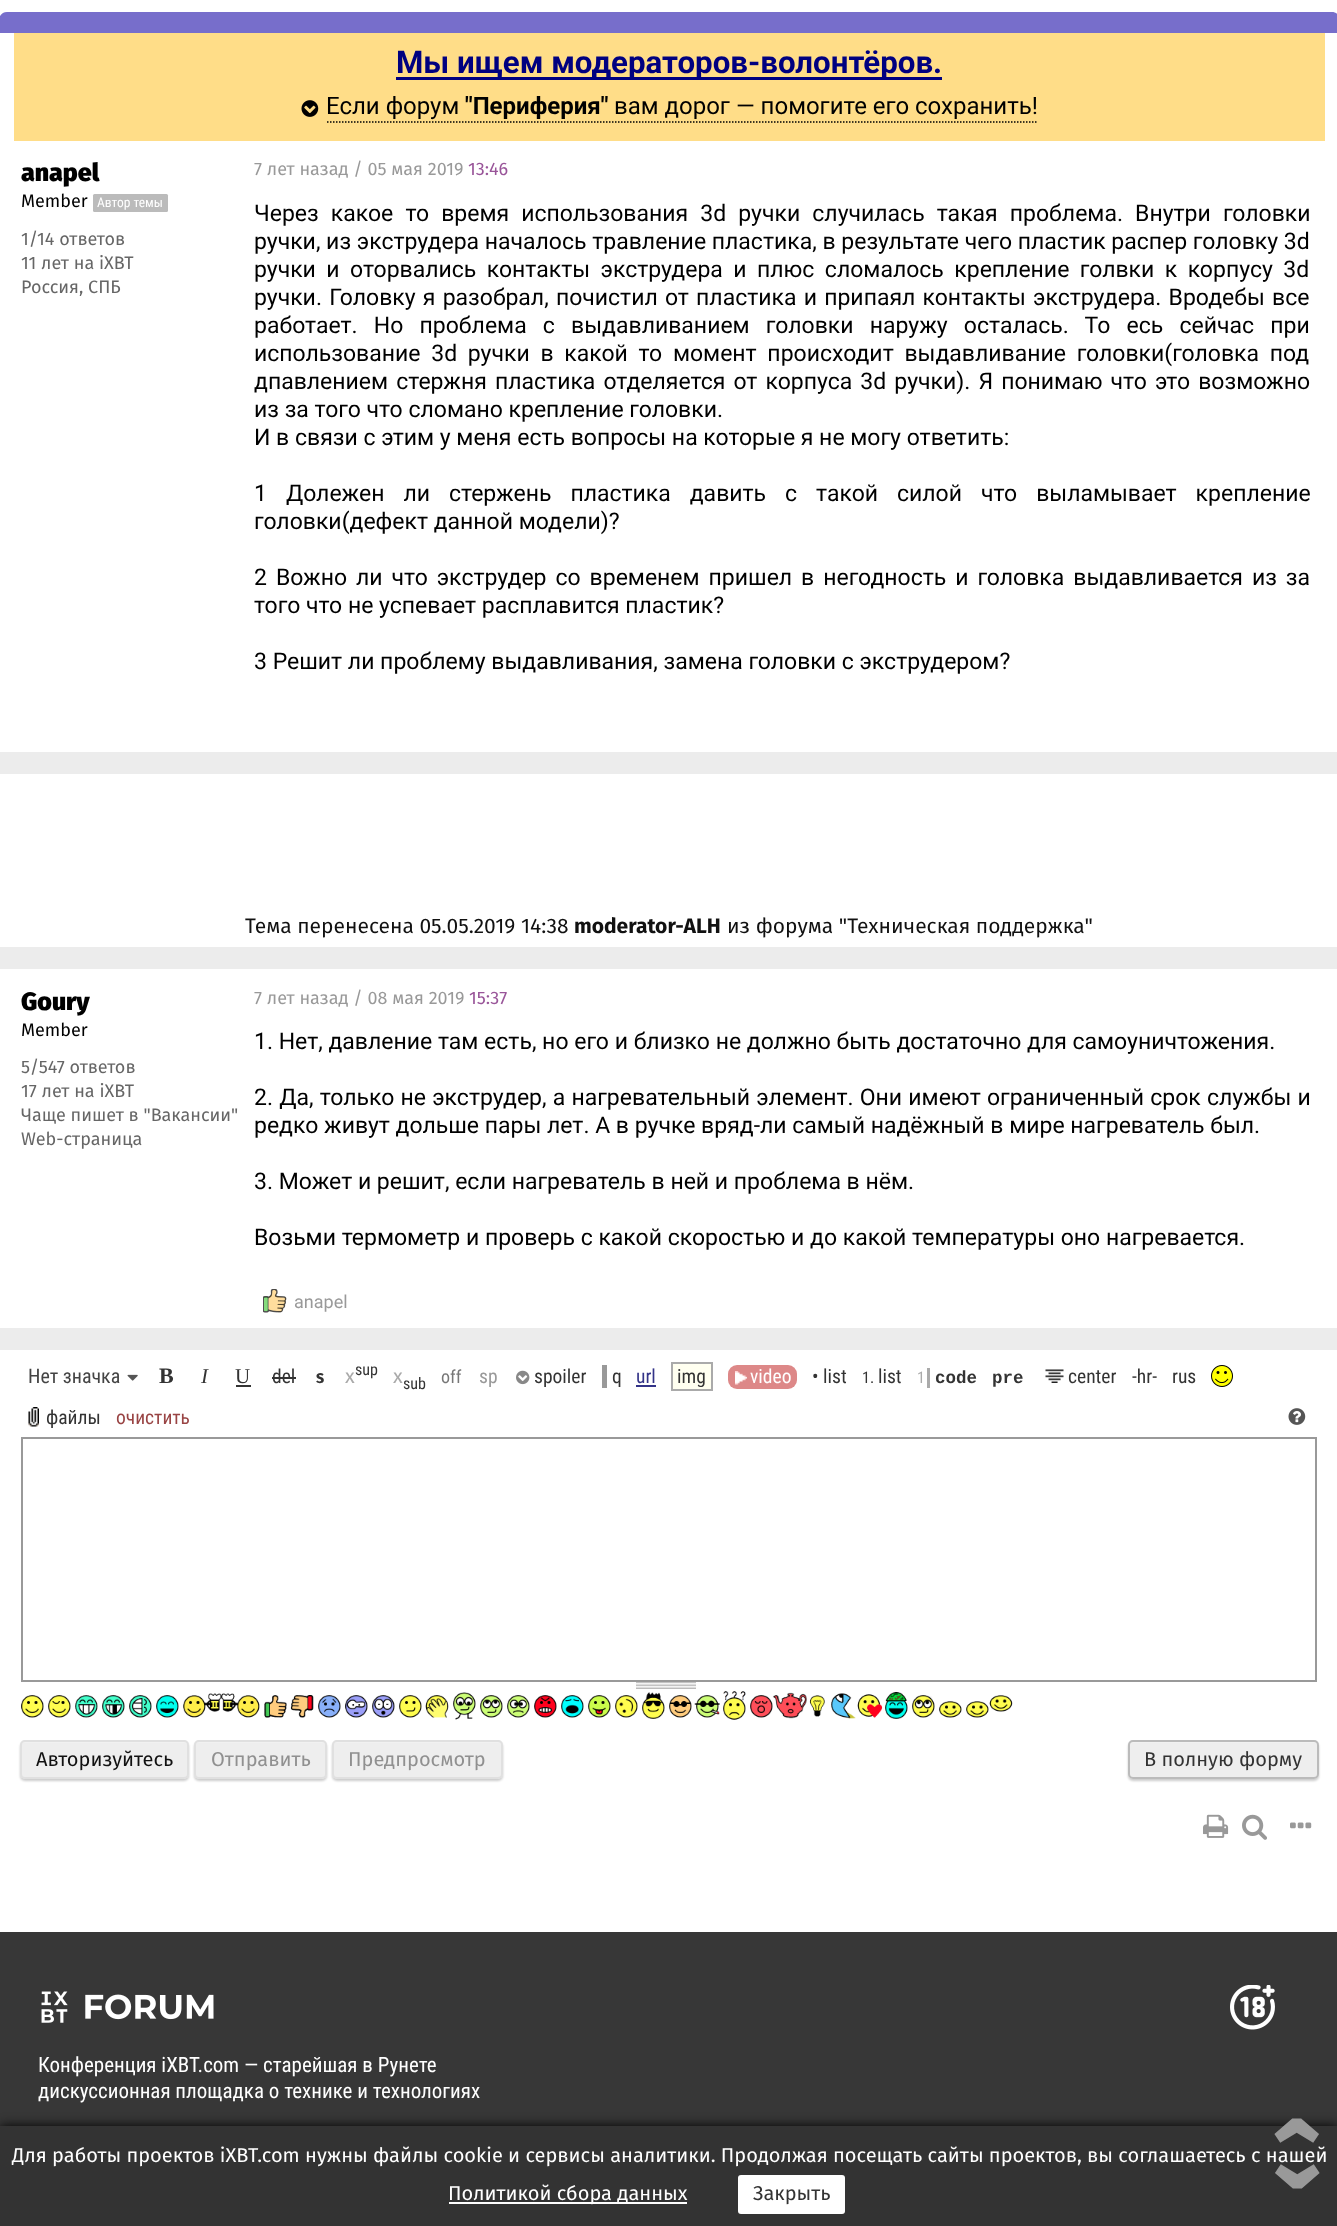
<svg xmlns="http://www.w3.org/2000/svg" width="1337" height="2226">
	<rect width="100%" height="100%" fill="#FFFFFF" />
	<path d="M7 12H1332C1336.5 12 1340 15.5 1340 20V33H-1V20C-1 15.5 2.5 12 7 12Z" fill="#776ECB" />
	<rect x="14" y="33" width="1311" height="108" fill="#FFDD88" />
	<rect x="396" y="77" width="546" height="3" fill="#000080" />
	<text x="396" y="73" font-family="Roboto" font-size="31.25" font-weight="700" fill="#000080">Мы ищем модераторов-волонтёров.</text>
	<path d="M327 122H1038" fill="none" stroke="#000000" stroke-width="1.5" stroke-dasharray="1.5 1.5" />
	<image x="301" y="100" width="18" height="17" href="assets/img1.png" />
	<text x="326" y="114" font-family="Roboto" font-size="24" fill="#000000">Если форум</text>
	<text x="465" y="114" font-family="Roboto" font-size="24" font-weight="700" fill="#000000">"Периферия"</text>
	<text x="614" y="114" font-family="Roboto" font-size="24" fill="#000000">вам дорог — помогите его сохранить!</text>
	<text x="21" y="181" font-family="Fira Sans" font-size="25" font-weight="900" fill="#000000">anapel</text>
	<text x="21" y="207" font-family="Fira Sans" font-size="18" fill="#000000">Member</text>
	<rect x="93" y="194" width="75" height="18" rx="1.5" fill="#BBBBBB" />
	<text x="97" y="207" font-family="Roboto Condensed" font-size="13.5" fill="#FFFFFF">Автор темы</text>
	<g font-family="Fira Sans" font-size="18" fill="#666666">
		<text x="21" y="245">1/14 ответов</text>
		<text x="21" y="269">11 лет на iXBT</text>
		<text x="21" y="293">Россия, СПБ</text>
	</g>
	<text x="254" y="175" font-family="Fira Sans" font-size="18" fill="#999999">7 лет назад / 05 мая 2019</text>
	<text x="468" y="175" font-family="Fira Sans" font-size="18" fill="#995599">13:46</text>
	<g font-family="Roboto" font-size="23" fill="#000000">
		<text x="254" y="221" word-spacing="6.4">Через какое то время использования 3d ручки случилась такая проблема. Внутри головки</text>
		<text x="254" y="249">ручки, из экструдера началось травление пластика, в результате чего пластик распер головку 3d</text>
		<text x="254" y="277" word-spacing="4.75">ручки и оторвались контакты экструдера и плюс сломалось крепление голвки к корпусу 3d</text>
		<text x="254" y="305" word-spacing="1.5">ручки. Головку я разобрал, почистил от пластика и припаял контакты экструдера. Вродебы все</text>
		<text x="254" y="333" word-spacing="10.5">работает. Но проблема с выдавливанием головки наружу осталась. То есь сейчас при</text>
		<text x="254" y="361" word-spacing="5">использование 3d ручки в какой то момент происходит выдавливание головки(головка под</text>
		<text x="254" y="389" word-spacing="2.4">дпавлением стержня пластика отделяется от корпуса 3d ручки). Я понимаю что это возможно</text>
		<text x="254" y="417">из за того что сломано крепление головки.</text>
		<text x="254" y="445">И в связи с этим у меня есть вопросы на которые я не могу ответить:</text>
		<text x="254" y="501" word-spacing="13.25">1 Долежен ли стержень пластика давить с такой силой что выламывает крепление</text>
		<text x="254" y="529">головки(дефект данной модели)?</text>
		<text x="254" y="585" word-spacing="3.25">2 Вожно ли что экструдер со временем пришел в негодность и головка выдавливается из за</text>
		<text x="254" y="613">того что не успевает расплавится пластик?</text>
		<text x="254" y="669">3 Решит ли проблему выдавливания, замена головки с экструдером?</text>
	</g>
	<rect x="0" y="752" width="1337" height="22" fill="#ECECEC" />
	<text x="245" y="933" font-family="Fira Sans" font-size="21" fill="#111111">Тема перенесена 05.05.2019 14:38</text>
	<text x="574" y="933" font-family="Fira Sans" font-size="21" font-weight="700" fill="#111111">moderator-ALH</text>
	<text x="727" y="933" font-family="Fira Sans" font-size="21" fill="#111111">из форума "Техническая поддержка"</text>
	<rect x="0" y="947" width="1337" height="22" fill="#ECECEC" />
	<text x="21" y="1010" font-family="Fira Sans" font-size="25" font-weight="900" fill="#000000">Goury</text>
	<text x="21" y="1036" font-family="Fira Sans" font-size="18" fill="#000000">Member</text>
	<g font-family="Fira Sans" font-size="18" fill="#666666">
		<text x="21" y="1073">5/547 ответов</text>
		<text x="21" y="1097">17 лет на iXBT</text>
		<text x="21" y="1121">Чаще пишет в "Вакансии"</text>
		<text x="21" y="1145">Web-страница</text>
	</g>
	<text x="254" y="1004" font-family="Fira Sans" font-size="18" fill="#999999">7 лет назад / 08 мая 2019</text>
	<text x="469" y="1004" font-family="Fira Sans" font-size="18" fill="#995599">15:37</text>
	<g font-family="Roboto" font-size="23" fill="#000000">
		<text x="254" y="1049">1. Нет, давление там есть, но его и близко не должно быть достаточно для самоуничтожения.</text>
		<text x="254" y="1105" word-spacing="0.5">2. Да, только не экструдер, а нагревательный элемент. Они имеют ограниченный срок службы и</text>
		<text x="254" y="1133">редко живут дольше пары лет. А в ручке вряд-ли самый надёжный в мире нагреватель был.</text>
		<text x="254" y="1189">3. Может и решит, если нагреватель в ней и проблема в нём.</text>
		<text x="254" y="1245">Возьми термометр и проверь с какой скоростью и до какой температуры оно нагревается.</text>
	</g>
	<image x="263" y="1289" width="24" height="24" href="assets/img2.png" />
	<text x="294" y="1308" font-family="Roboto" font-size="18" fill="#999999">anapel</text>
	<rect x="0" y="1328" width="1337" height="22" fill="#ECECEC" />
	<text x="28" y="1383" font-family="Roboto Condensed" font-size="20" fill="#444444">Нет значка</text>
	<image x="127" y="1374" width="11" height="7" href="assets/img3.png" />
	<text x="159" y="1383" font-family="Liberation Serif" font-size="22" font-weight="700" fill="#333333">B</text>
	<text x="201" y="1383" font-family="Liberation Serif" font-size="21" font-style="italic" fill="#333333">I</text>
	<text x="235" y="1383" font-family="Liberation Serif" font-size="21" fill="#333333">U</text>
	<rect x="236" y="1385" width="15" height="2" fill="#333333" />
	<text x="272" y="1383" font-family="Roboto Condensed" font-size="19.5" fill="#333333">del</text>
	<rect x="272" y="1377" width="24" height="2" fill="#333333" />
	<text x="316" y="1383" font-family="Fira Sans" font-size="14" font-weight="800" fill="#333333">S</text>
	<text x="345" y="1383" font-family="Fira Sans" font-size="20" fill="#AAAAAA">x</text>
	<text x="355" y="1375" font-family="Roboto Condensed" font-size="16" fill="#333333">sup</text>
	<text x="393" y="1383" font-family="Fira Sans" font-size="20" fill="#AAAAAA">x</text>
	<text x="403" y="1389" font-family="Roboto Condensed" font-size="16" fill="#333333">sub</text>
	<text x="441" y="1383" font-family="Roboto Condensed" font-size="18" fill="#777777">off</text>
	<text x="479" y="1383" font-family="Roboto Condensed" font-size="19.5" fill="#999999">sp</text>
	<image x="516" y="1370" width="14" height="15" href="assets/img4.png" />
	<g font-family="Roboto Condensed" font-size="19.5" fill="#333333">
		<text x="534" y="1383">spoiler</text>
		<text x="612" y="1383">q</text>
	</g>
	<rect x="602" y="1365" width="5" height="23" fill="#999999" />
	<text x="636" y="1383" font-family="Roboto Condensed" font-size="19.5" fill="#333388">url</text>
	<rect x="636" y="1385" width="20" height="2" fill="#333388" />
	<rect x="672" y="1363" width="40" height="27" fill="#FFFFF0" stroke="#AAAAAA" stroke-width="2" />
	<text x="677" y="1383" font-family="Roboto Condensed" font-size="19.5" fill="#333333">img</text>
	<rect x="728" y="1365" width="69" height="24" rx="9" fill="#DD8888" />
	<image x="735" y="1371" width="12" height="14" href="assets/img5.png" />
	<text x="750" y="1383" font-family="Roboto Condensed" font-size="19.5" fill="#FFFFFF">video</text>
	<text x="812" y="1383" font-family="Roboto Condensed" font-size="19.5" fill="#333333">• list</text>
	<text x="862" y="1383" font-family="Roboto Condensed" font-size="16" fill="#333333">1.</text>
	<text x="878" y="1383" font-family="Roboto Condensed" font-size="19.5" fill="#333333">list</text>
	<text x="917" y="1383" font-family="Roboto Condensed" font-size="16" fill="#AAAAAA">1</text>
	<rect x="927" y="1368" width="3" height="20" fill="#AAAAAA" />
	<g font-family="Liberation Mono" font-size="17.5" font-weight="700" fill="#333333">
		<text x="935" y="1383">code</text>
		<text x="992" y="1383">pre</text>
	</g>
	<image x="1045" y="1369" width="19" height="14" href="assets/img6.png" />
	<g font-family="Roboto Condensed" font-size="19.5" fill="#333333">
		<text x="1068" y="1383">center</text>
		<text x="1132" y="1383">-hr-</text>
		<text x="1172" y="1383">rus</text>
	</g>
	<image x="1211" y="1365" width="22" height="22" href="assets/img7.png" />
	<image x="28" y="1407" width="11" height="20" href="assets/img8.png" />
	<text x="46" y="1424" font-family="Roboto Condensed" font-size="19.5" fill="#333333">файлы</text>
	<text x="116" y="1424" font-family="Roboto Condensed" font-size="19.5" fill="#994444">очистить</text>
	<image x="1288" y="1408" width="18" height="17" href="assets/img9.png" />
	<rect x="22" y="1438" width="1294" height="243" fill="none" stroke="#999999" stroke-width="2" />
	<image x="636" y="1682" width="60" height="7" href="assets/img10.png" />
	<image x="21" y="1691" width="992" height="29" href="assets/img11.png" />
	<rect x="20" y="1742" width="169" height="39" rx="5" fill="#000000" fill-opacity="0.2" filter="blur(1px)" />
	<rect x="20" y="1740" width="169" height="39" rx="5" fill="#EEEEEE" />
	<path d="M24 1743H184C186 1743 188 1744 188 1746V1745C188 1743 187 1742 185 1742H24C22 1742 21 1743 21 1745V1746C21 1744 22 1743 24 1743Z" fill="#F1F1F1" />
	<rect x="21" y="1741" width="167" height="37" rx="4" fill="none" stroke="#E0E0E0" stroke-width="2" />
	<text x="36" y="1766" font-family="Fira Sans" font-size="20" fill="#111111">Авторизуйтесь</text>
	<rect x="194" y="1742" width="133" height="39" rx="5" fill="#000000" fill-opacity="0.2" filter="blur(1px)" />
	<rect x="194" y="1740" width="133" height="39" rx="5" fill="#EEEEEE" />
	<path d="M198 1743H322C324 1743 326 1744 326 1746C326 1744 326 1742 324 1742H197C195 1742 195 1744 195 1746C195 1744 196 1743 198 1743Z" fill="#F1F1F1" />
	<rect x="195" y="1741" width="131" height="37" rx="4" fill="none" stroke="#E0E0E0" stroke-width="2" />
	<text x="211" y="1766" font-family="Fira Sans" font-size="20" fill="#909090">Отправить</text>
	<rect x="332" y="1742" width="171" height="39" rx="5" fill="#000000" fill-opacity="0.2" filter="blur(1px)" />
	<rect x="332" y="1740" width="171" height="39" rx="5" fill="#EEEEEE" />
	<path d="M336 1743H498C500 1743 501 1744 501 1746V1745C501 1743 500 1742 498 1742H336C334 1742 333 1743 333 1745V1746C333 1744 334 1743 336 1743Z" fill="#F1F1F1" />
	<rect x="333" y="1741" width="169" height="37" rx="4" fill="none" stroke="#E0E0E0" stroke-width="2" />
	<text x="348" y="1766" font-family="Fira Sans" font-size="20" fill="#909090">Предпросмотр</text>
	<rect x="1128" y="1742" width="191" height="39" rx="5" fill="#000000" fill-opacity="0.2" filter="blur(1px)" />
	<rect x="1128" y="1740" width="191" height="39" rx="5" fill="#EEEEEE" />
	<path d="M1132 1743H1314C1316 1743 1317 1744 1317 1746C1317 1744 1316 1742 1314 1742H1132C1130 1743 1130 1744 1130 1746C1130 1744 1131 1743 1132 1743Z" fill="#F1F1F1" />
	<rect x="1129" y="1741" width="189" height="37" rx="4" fill="none" stroke="#BBBBBB" stroke-width="2" />
	<text x="1144" y="1766" font-family="Fira Sans" font-size="20" fill="#333333">В полную форму</text>
	<image x="1203" y="1814" width="26" height="24" href="assets/img12.png" />
	<image x="1242" y="1814" width="25" height="26" href="assets/img13.png" />
	<image x="1290" y="1822" width="22" height="7" href="assets/img14.png" />
	<rect x="0" y="1932" width="1337" height="194" fill="#373737" />
	<image x="41" y="1991" width="173" height="32" href="assets/img15.png" />
	<image x="1230" y="1985" width="45" height="45" href="assets/img16.png" />
	<g font-family="'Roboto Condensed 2'" font-size="21" fill="#FFFFFF">
		<text x="38" y="2072">Конференция iXBT.com — старейшая в Рунете</text>
		<text x="38" y="2098">дискуссионная площадка о технике и технологиях</text>
	</g>
	<rect x="0" y="2126" width="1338" height="100" fill="#000000" filter="blur(6px)" />
	<rect x="0" y="2126" width="1337" height="100" fill="#333333" />
	<text x="1274" y="2116" transform="rotate(90 1274 2116)" font-family="Fira Sans" font-size="80" font-weight="800" fill="#999999">‹</text>
	<text x="12" y="2162" font-family="Fira Sans" font-size="20" fill="#FFFFFF">Для работы проектов iXBT.com нужны файлы cookie и сервисы аналитики. Продолжая посещать сайты проектов, вы соглашаетесь с нашей</text>
	<rect x="449" y="2202" width="238" height="2" fill="#FFFFFF" />
	<text x="448" y="2200" font-family="Fira Sans" font-size="20" fill="#FFFFFF">Политикой сбора данных</text>
	<rect x="738" y="2175" width="107" height="39" rx="3" fill="#FFFFFF" />
	<text x="753" y="2200" font-family="Fira Sans" font-size="20" fill="#333333">Закрыть</text>
	<text x="1320" y="2191" transform="rotate(-90 1320 2191)" font-family="Fira Sans" font-size="80" font-weight="800" fill="#999999">‹</text>
</svg>
